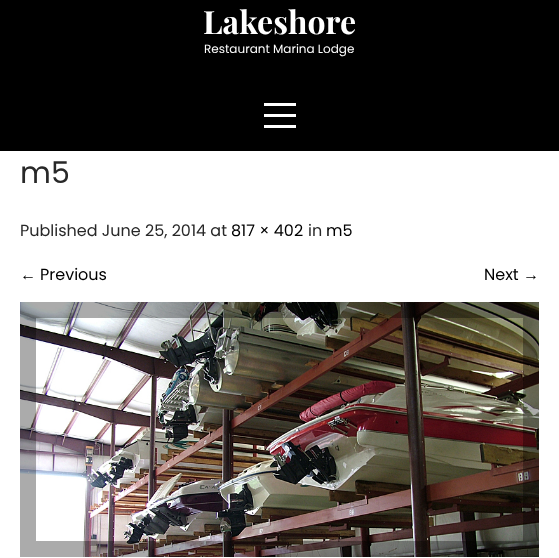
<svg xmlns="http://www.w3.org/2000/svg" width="559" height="558">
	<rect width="100%" height="100%" fill="#FFFFFF" />
	<rect x="0" y="0" width="559" height="151" fill="#000000" />
	<text x="203" y="34" font-family="Playfair Display" font-size="32" font-weight="700" fill="#FFFFFF">Lakeshore</text>
	<text x="204" y="53" font-family="Poppins" font-size="12" fill="#FFFFFF">Restaurant Marina Lodge</text>
	<rect x="264" y="103" width="32" height="3" fill="#FFFFFF" />
	<rect x="264" y="114" width="32" height="3" fill="#FFFFFF" />
	<rect x="264" y="125" width="32" height="3" fill="#FFFFFF" />
	<text x="20" y="183" font-family="Poppins" font-size="30" fill="#282828">m5</text>
	<text x="20" y="236" font-family="Poppins" font-size="16" fill="#282828">Published June 25, 2014 at</text>
	<text x="231" y="236" font-family="Poppins" font-size="16" fill="#000000">817 × 402</text>
	<text x="308" y="236" font-family="Poppins" font-size="16" fill="#282828">in</text>
	<text x="326" y="236" font-family="Poppins" font-size="16" fill="#000000">m5</text>
	<text x="20" y="280" font-family="Liberation Serif" font-size="16" fill="#000000">←</text>
	<g font-family="Poppins" font-size="16" fill="#000000">
		<text x="40" y="280">Previous</text>
		<text x="484" y="280">Next</text>
	</g>
	<text x="523" y="280" font-family="Liberation Serif" font-size="16" fill="#000000">→</text>
	<image x="20" y="302" width="519" height="255" href="assets/img1.png" />
</svg>
